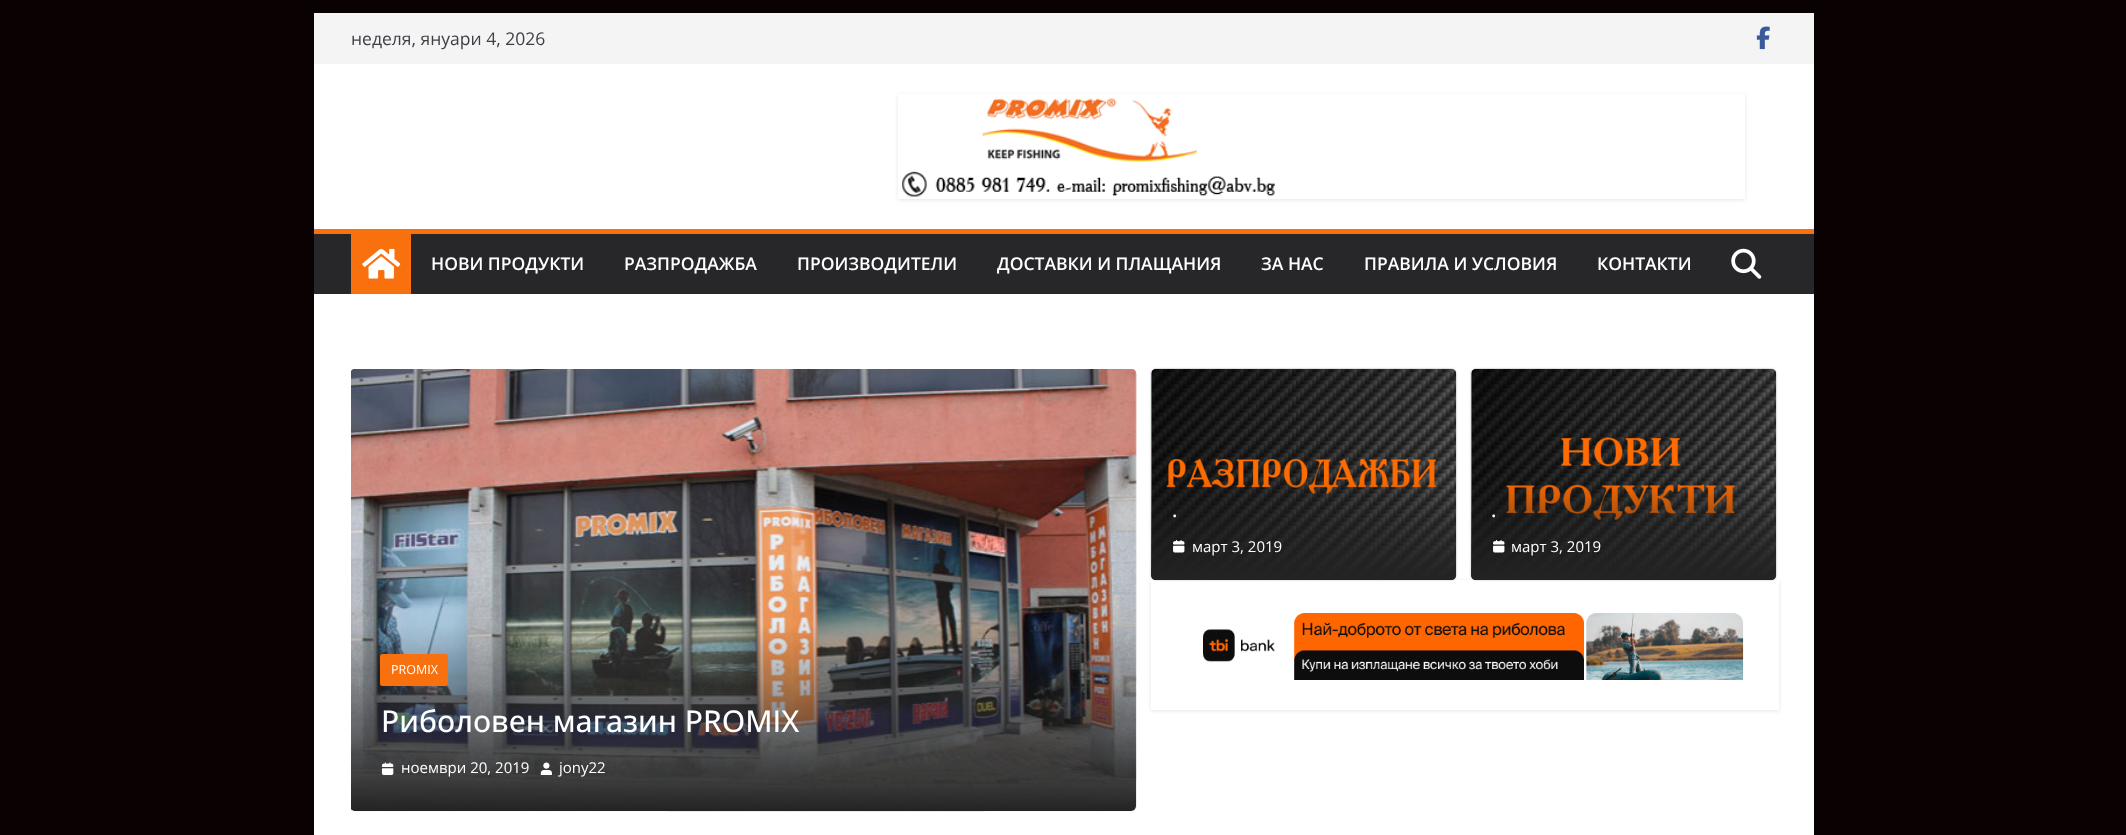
<svg xmlns="http://www.w3.org/2000/svg" width="2126" height="835">
	<defs>
		<clipPath id="clip1"><path d="M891 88H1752V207H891ZM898 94H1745V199H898Z" clip-rule="evenodd" /></clipPath>
		<clipPath id="clip2"><path d="M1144 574H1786V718H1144ZM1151 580H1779V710H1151Z" clip-rule="evenodd" /></clipPath>
		<linearGradient id="g1" gradientUnits="userSpaceOnUse" x1="1304" y1="478" x2="1304" y2="580"><stop offset="0" stop-color="#232323" stop-opacity="0" /><stop offset="1" stop-color="#232323" /></linearGradient>
		<linearGradient id="g2" gradientUnits="userSpaceOnUse" x1="1624" y1="478" x2="1624" y2="580"><stop offset="0" stop-color="#232323" stop-opacity="0" /><stop offset="1" stop-color="#232323" /></linearGradient>
		<clipPath id="clip3"><rect x="350" y="369" width="786" height="442" rx="5" /></clipPath>
		<linearGradient id="g3" gradientUnits="userSpaceOnUse" x1="743" y1="624" x2="743" y2="811"><stop offset="0" stop-color="#232323" stop-opacity="0" /><stop offset="1" stop-color="#232323" /></linearGradient>
	</defs>
	<rect width="100%" height="100%" fill="#0A0202" />
	<rect x="314" y="64" width="1500" height="165" fill="#FFFFFF" />
	<rect x="314" y="13" width="1500" height="51" fill="#F4F4F5" />
	<text x="351" y="45" font-family="Open Sans" font-size="17.5" fill="#3F3F46">неделя, януари 4, 2026</text>
	<image x="1756" y="26" width="14" height="24" href="assets/img1.png" />
	<g clip-path="url(#clip1)">
		<rect x="898" y="95" width="847" height="105" fill="#000000" fill-opacity="0.1" filter="blur(2px)" />
	</g>
	<image x="902" y="97" width="373" height="100" href="assets/img2.png" />
	<rect x="314" y="234" width="1500" height="60" fill="#27272A" />
	<rect x="314" y="229" width="1500" height="5" fill="#F9700E" />
	<rect x="351" y="234" width="60" height="60" fill="#F9700E" />
	<image x="362" y="248" width="39" height="31" href="assets/img3.png" />
	<g font-family="Open Sans" font-size="17.5" font-weight="600" fill="#FFFFFF">
		<text x="431" y="270">НОВИ ПРОДУКТИ</text>
		<text x="624" y="270">РАЗПРОДАЖБА</text>
		<text x="797" y="270">ПРОИЗВОДИТЕЛИ</text>
		<text x="997" y="270">ДОСТАВКИ И ПЛАЩАНИЯ</text>
		<text x="1261" y="270">ЗА НАС</text>
		<text x="1364" y="270">ПРАВИЛА И УСЛОВИЯ</text>
		<text x="1597" y="270">КОНТАКТИ</text>
	</g>
	<image x="1731" y="248" width="31" height="31" href="assets/img4.png" />
	<rect x="314" y="294" width="1500" height="541" fill="#FFFFFF" />
	<rect x="1151" y="369" width="305" height="211" rx="5" fill="#000000" fill-opacity="0.24" filter="blur(1px)" />
	<g clip-path="url(#clip2)">
		<rect x="1151" y="581" width="628" height="130" fill="#000000" fill-opacity="0.1" filter="blur(2px)" />
	</g>
	<image x="1151" y="368" width="306" height="212" href="assets/img5.png" />
	<path d="M1151 478H1456V575C1456 578 1454 580 1451 580H1156C1153 580 1151 578 1151 575Z" fill="url(#g1)" />
	<text x="1172" y="517" font-family="Open Sans" font-size="20" font-weight="500" fill="#FFFFFF">.</text>
	<image x="1173" y="540" width="12" height="13" href="assets/img6.png" />
	<text x="1192" y="552" font-family="Open Sans" font-size="15" fill="#FFFFFF">март 3, 2019</text>
	<rect x="1471" y="369" width="305" height="211" rx="5" fill="#000000" fill-opacity="0.24" filter="blur(1px)" />
	<image x="1471" y="368" width="306" height="212" href="assets/img7.png" />
	<path d="M1471 478H1776V575C1776 578 1774 580 1771 580H1476C1473 580 1471 578 1471 575Z" fill="url(#g2)" />
	<text x="1491" y="517" font-family="Open Sans" font-size="20" font-weight="500" fill="#FFFFFF">.</text>
	<image x="1493" y="540" width="12" height="13" href="assets/img6.png" />
	<text x="1511" y="552" font-family="Open Sans" font-size="15" fill="#FFFFFF">март 3, 2019</text>
	<image x="1203" y="613" width="541" height="67" href="assets/img8.png" />
	<image x="351" y="369" width="786" height="443" href="assets/img9.png" />
	<g clip-path="url(#clip3)">
		<path d="M351 624H1136V806C1136 809 1134 811 1131 811H351Z" fill="url(#g3)" />
	</g>
	<rect x="380" y="654" width="68" height="32" rx="2.5" fill="#F9700E" />
	<text x="391" y="674" font-family="Open Sans" font-size="12.5" fill="#FFFFFF">PROMIX</text>
	<text x="381" y="732" font-family="Open Sans" font-size="30" font-weight="500" fill="#FFFFFF">Риболовен магазин PROMIX</text>
	<image x="381" y="762" width="13" height="13" href="assets/img10.png" />
	<text x="401" y="773" font-family="Open Sans" font-size="15" fill="#FFFFFF">ноември 20, 2019</text>
	<image x="540" y="762" width="12" height="13" href="assets/img11.png" />
	<text x="559" y="773" font-family="Open Sans" font-size="15" fill="#FFFFFF">jony22</text>
</svg>
